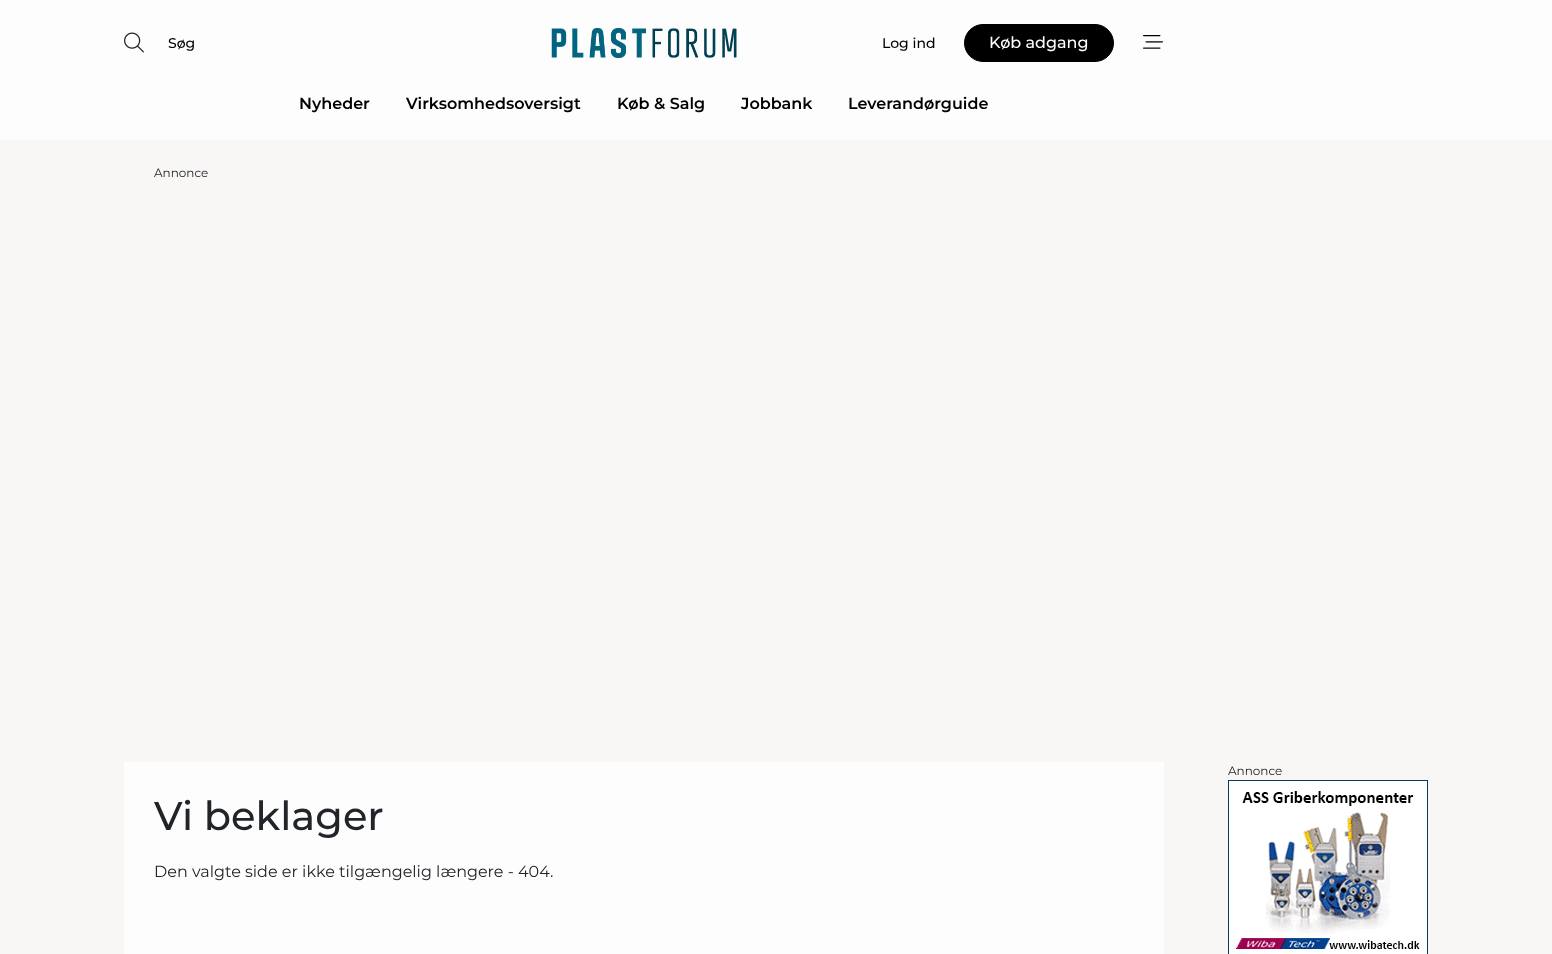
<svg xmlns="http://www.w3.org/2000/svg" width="1552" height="954">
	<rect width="100%" height="100%" fill="#F8F7F6" />
	<rect x="0" y="0" width="1552" height="140" fill="#FDFDFD" />
	<image x="124" y="32" width="20" height="21" href="assets/img1.png" />
	<text x="168" y="48" font-family="Montserrat" font-size="14" font-weight="500" fill="#000000">Søg</text>
	<image x="551" y="28" width="186" height="30" href="assets/img2.png" />
	<text x="882" y="48" font-family="Montserrat" font-size="14" font-weight="500" fill="#000000">Log ind</text>
	<rect x="964.5" y="24.5" width="149" height="37" rx="18.5" fill="#000000" stroke="#000000" />
	<text x="989" y="48" font-family="Montserrat" font-size="16" font-weight="500" fill="#FDFDFD">Køb adgang</text>
	<image x="1143" y="35" width="20" height="14" href="assets/img3.png" />
	<g font-family="Montserrat" font-size="16" font-weight="600" fill="#000000">
		<text x="299" y="109">Nyheder</text>
		<text x="406" y="109">Virksomhedsoversigt</text>
		<text x="617" y="109">Køb &amp; Salg</text>
		<text x="741" y="109">Jobbank</text>
		<text x="848" y="109">Leverandørguide</text>
	</g>
	<g font-family="Montserrat" font-size="12" fill="#212529">
		<text x="154" y="177">Annonce</text>
		<text x="1228" y="775">Annonce</text>
	</g>
	<image x="1228" y="780" width="200" height="174" href="assets/img4.png" />
	<rect x="124" y="762" width="1040" height="192" fill="#FDFDFD" />
	<text x="154" y="830" font-family="Montserrat" font-size="40" font-weight="500" fill="#212529">Vi beklager</text>
	<text x="154" y="877" font-family="Montserrat" font-size="16" fill="#212529">Den valgte side er ikke tilgængelig længere - 404.</text>
</svg>
